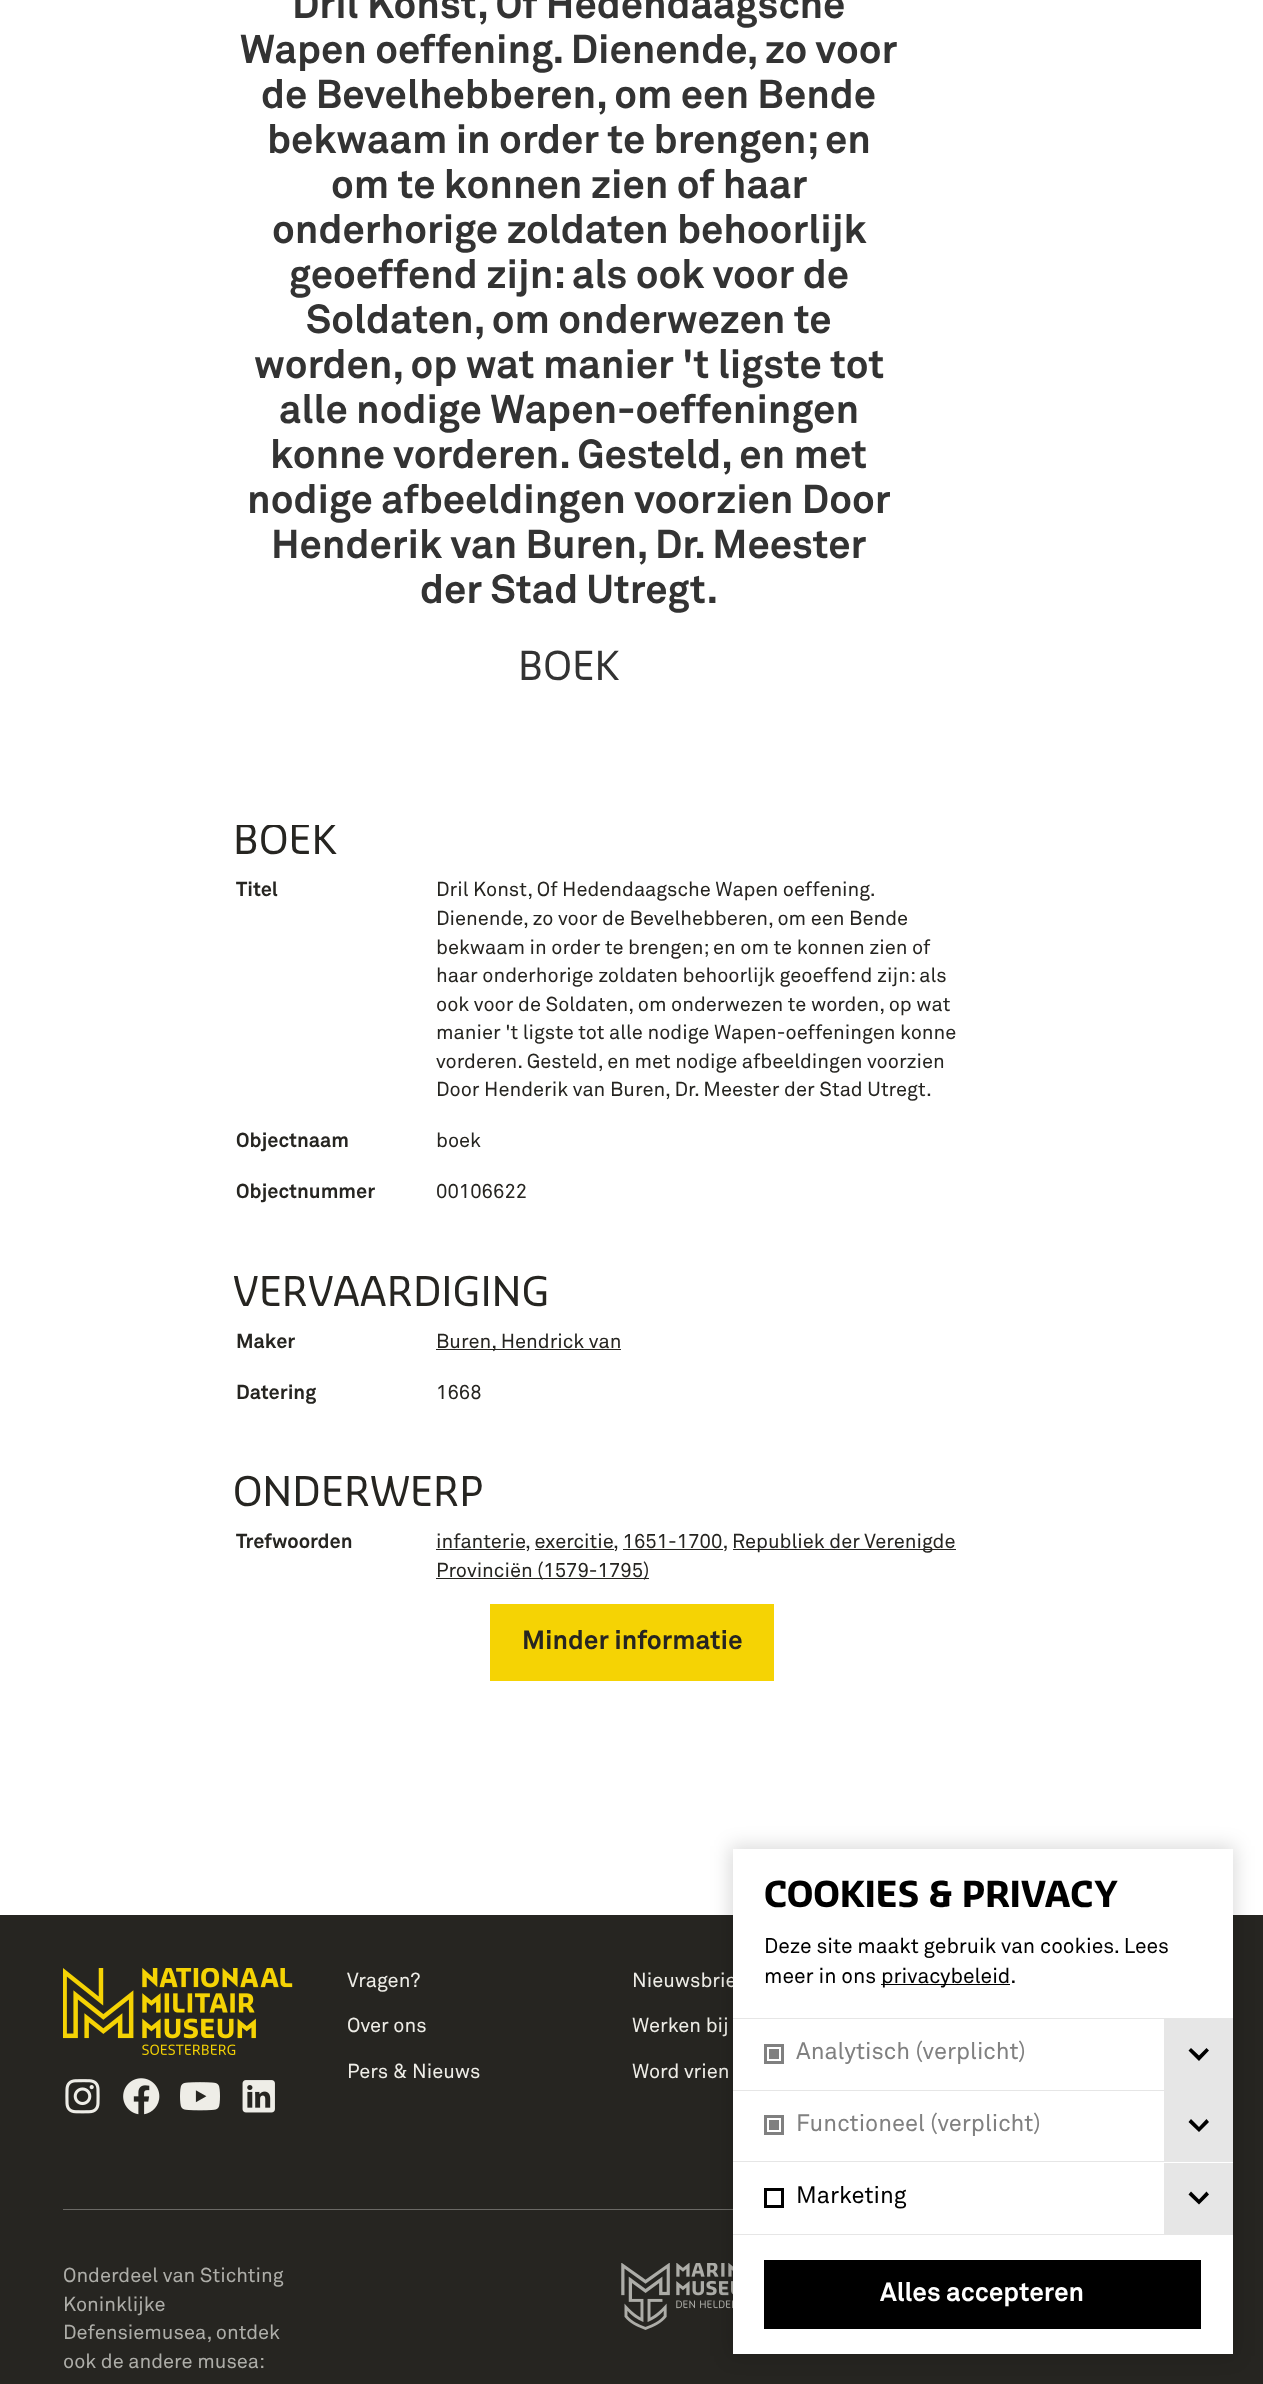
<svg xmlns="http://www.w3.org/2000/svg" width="1263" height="2384">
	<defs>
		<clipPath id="clip1"><rect x="45" y="825" width="1175" height="1090" /></clipPath>
	</defs>
	<rect width="100%" height="100%" fill="#FFFFFF" />
	<g font-family="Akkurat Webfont" font-size="40" font-weight="700" fill="#333333">
		<text x="292" y="18">Dril Konst, Of Hedendaagsche</text>
		<text x="240" y="63">Wapen oeffening. Dienende, zo voor</text>
		<text x="261" y="108">de Bevelhebberen, om een Bende</text>
		<text x="267" y="153">bekwaam in order te brengen; en</text>
		<text x="331" y="198">om te konnen zien of haar</text>
		<text x="272" y="243">onderhorige zoldaten behoorlijk</text>
		<text x="289" y="288">geoeffend zijn: als ook voor de</text>
		<text x="306" y="333">Soldaten, om onderwezen te</text>
		<text x="254" y="378">worden, op wat manier 't ligste tot</text>
		<text x="279" y="423">alle nodige Wapen-oeffeningen</text>
		<text x="270" y="468">konne vorderen. Gesteld, en met</text>
		<text x="247" y="513">nodige afbeeldingen voorzien Door</text>
		<text x="271" y="558">Henderik van Buren, Dr. Meester</text>
		<text x="420" y="603">der Stad Utregt.</text>
	</g>
	<text x="518" y="680" font-family="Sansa" font-size="39" fill="#333333">BOEK</text>
	<g clip-path="url(#clip1)">
		<text x="233" y="854" font-family="Sansa" font-size="40" fill="#262521">BOEK</text>
	</g>
	<text x="236" y="896" font-family="Akkurat Webfont" font-size="20" font-weight="700" fill="#262521">Titel</text>
	<g font-family="Akkurat Webfont" font-size="20" fill="#262521">
		<text x="436" y="896">Dril Konst, Of Hedendaagsche Wapen oeffening.</text>
		<text x="436" y="925">Dienende, zo voor de Bevelhebberen, om een Bende</text>
		<text x="436" y="954">bekwaam in order te brengen; en om te konnen zien of</text>
		<text x="436" y="982">haar onderhorige zoldaten behoorlijk geoeffend zijn: als</text>
		<text x="436" y="1011">ook voor de Soldaten, om onderwezen te worden, op wat</text>
		<text x="436" y="1039">manier 't ligste tot alle nodige Wapen-oeffeningen konne</text>
		<text x="436" y="1068">vorderen. Gesteld, en met nodige afbeeldingen voorzien</text>
		<text x="436" y="1096">Door Henderik van Buren, Dr. Meester der Stad Utregt.</text>
	</g>
	<text x="236" y="1147" font-family="Akkurat Webfont" font-size="20" font-weight="700" fill="#262521">Objectnaam</text>
	<text x="436" y="1147" font-family="Akkurat Webfont" font-size="20" fill="#262521">boek</text>
	<text x="236" y="1198" font-family="Akkurat Webfont" font-size="20" font-weight="700" fill="#262521">Objectnummer</text>
	<text x="436" y="1198" font-family="Akkurat Webfont" font-size="20" fill="#262521">00106622</text>
	<text x="233" y="1306" font-family="Sansa" font-size="40" fill="#262521">VERVAARDIGING</text>
	<text x="236" y="1348" font-family="Akkurat Webfont" font-size="20" font-weight="700" fill="#262521">Maker</text>
	<rect x="436" y="1349" width="185" height="1" fill="#262521" />
	<text x="436" y="1348" font-family="Akkurat Webfont" font-size="20" fill="#262521">Buren, Hendrick van</text>
	<text x="236" y="1399" font-family="Akkurat Webfont" font-size="20" font-weight="700" fill="#262521">Datering</text>
	<text x="436" y="1399" font-family="Akkurat Webfont" font-size="20" fill="#262521">1668</text>
	<text x="233" y="1506" font-family="Sansa" font-size="40" fill="#262521">ONDERWERP</text>
	<text x="236" y="1548" font-family="Akkurat Webfont" font-size="20" font-weight="700" fill="#262521">Trefwoorden</text>
	<text x="436" y="1548" font-family="Akkurat Webfont" font-size="20" fill="#262521">infanterie</text>
	<rect x="436" y="1549" width="89" height="1" fill="#262521" />
	<g font-family="Akkurat Webfont" font-size="20" fill="#262521">
		<text x="525" y="1548">, exercitie</text>
		<text x="613" y="1548">, 1651-1700,</text>
	</g>
	<rect x="733" y="1549" width="223" height="1" fill="#262521" />
	<text x="732" y="1548" font-family="Akkurat Webfont" font-size="20" fill="#262521">Republiek der Verenigde</text>
	<rect x="535" y="1549" width="79" height="1" fill="#262521" />
	<rect x="623" y="1549" width="100" height="1" fill="#262521" />
	<rect x="436" y="1578" width="213" height="1" fill="#262521" />
	<text x="436" y="1577" font-family="Akkurat Webfont" font-size="20" fill="#262521">Provinciën (1579-1795)</text>
	<rect x="490" y="1604" width="284" height="77" fill="#F5D304" />
	<text x="522" y="1649" font-family="Akkurat Webfont" font-size="26.25" font-weight="700" fill="#262521">Minder informatie</text>
	<rect x="0" y="1915" width="1263" height="469" fill="#262521" />
	<image x="63" y="1968" width="230" height="87" href="assets/img1.png" />
	<image x="65" y="2079" width="35" height="35" href="assets/img2.png" />
	<image x="123" y="2078" width="37" height="37" href="assets/img3.png" />
	<image x="180" y="2082" width="40" height="29" href="assets/img4.png" />
	<image x="242" y="2080" width="33" height="33" href="assets/img5.png" />
	<g font-family="Akkurat Webfont" font-size="20" fill="#EEEDE7">
		<text x="347" y="1987">Vragen?</text>
		<text x="347" y="2032">Over ons</text>
		<text x="347" y="2078">Pers &amp; Nieuws</text>
		<text x="632" y="1987">Nieuwsbrie</text>
		<text x="632" y="2032">Werken bij</text>
		<text x="632" y="2078">Word vrien</text>
	</g>
	<rect x="63" y="2209" width="670" height="1" fill="#6A6965" />
	<g font-family="Akkurat Webfont" font-size="20" fill="#ADADA8">
		<text x="63" y="2282">Onderdeel van Stichting</text>
		<text x="63" y="2311">Koninklijke</text>
		<text x="63" y="2339">Defensiemusea, ontdek</text>
		<text x="63" y="2368">ook de andere musea:</text>
	</g>
	<image x="621" y="2263" width="112" height="67" href="assets/img6.png" />
	<rect x="730" y="1846" width="505" height="510" fill="#000000" fill-opacity="0.15" filter="blur(9.5px)" />
	<rect x="733" y="1849" width="500" height="505" fill="#FFFFFF" />
	<text x="764" y="1907" font-family="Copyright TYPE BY" font-size="35" font-weight="700" fill="#000000">COOKIES &amp; PRIVACY</text>
	<g font-family="Akkurat Webfont" font-size="21" fill="#000000">
		<text x="764" y="1953">Deze site maakt gebruik van cookies. Lees</text>
		<text x="764" y="1983">meer in ons</text>
	</g>
	<rect x="881" y="1984" width="129" height="1" fill="#000000" />
	<text x="881" y="1983" font-family="Akkurat Webfont" font-size="21" fill="#000000">privacybeleid.</text>
	<rect x="733" y="2234" width="500" height="1" fill="#E6E6E6" />
	<rect x="733" y="2018" width="500" height="1" fill="#E6E6E6" />
	<rect x="765.5" y="2045.5" width="17" height="17" fill="none" stroke="#808080" stroke-width="3" />
	<rect x="769" y="2049" width="10" height="10" fill="#808080" />
	<text x="796" y="2059" font-family="Akkurat Webfont" font-size="23.6" fill="#808080">Analytisch (verplicht)</text>
	<rect x="1164" y="2019" width="69" height="71" fill="#E6E6E6" />
	<path d="M1206.5 2048L1209 2050.5L1199 2061L1188.5 2050.5L1191 2048L1199 2055.5Z" fill="#000000" />
	<rect x="733" y="2090" width="500" height="1" fill="#E6E6E6" />
	<rect x="765.5" y="2116.5" width="17" height="17" fill="none" stroke="#808080" stroke-width="3" />
	<rect x="769" y="2120" width="10" height="10" fill="#808080" />
	<text x="796" y="2131" font-family="Akkurat Webfont" font-size="23.6" fill="#808080">Functioneel (verplicht)</text>
	<rect x="1164" y="2091" width="69" height="70" fill="#E6E6E6" />
	<path d="M1206.5 2119L1209 2122L1199 2132L1188.5 2122L1191 2119L1199 2127Z" fill="#000000" />
	<rect x="733" y="2161" width="500" height="1" fill="#E6E6E6" />
	<rect x="765.5" y="2189.5" width="17" height="17" fill="none" stroke="#000000" stroke-width="3" />
	<text x="796" y="2203" font-family="Akkurat Webfont" font-size="23.6" fill="#000000">Marketing</text>
	<rect x="1164" y="2163" width="69" height="71" fill="#E6E6E6" />
	<path d="M1206.5 2191.5L1209 2194.5L1199 2204.5L1188.5 2194.5L1191 2191.5L1199 2199.5Z" fill="#000000" />
	<rect x="764" y="2260" width="437" height="69" fill="#000000" />
	<text x="880" y="2301" font-family="Akkurat Webfont" font-size="26.25" font-weight="700" fill="#FFFFFF">Alles accepteren</text>
</svg>
